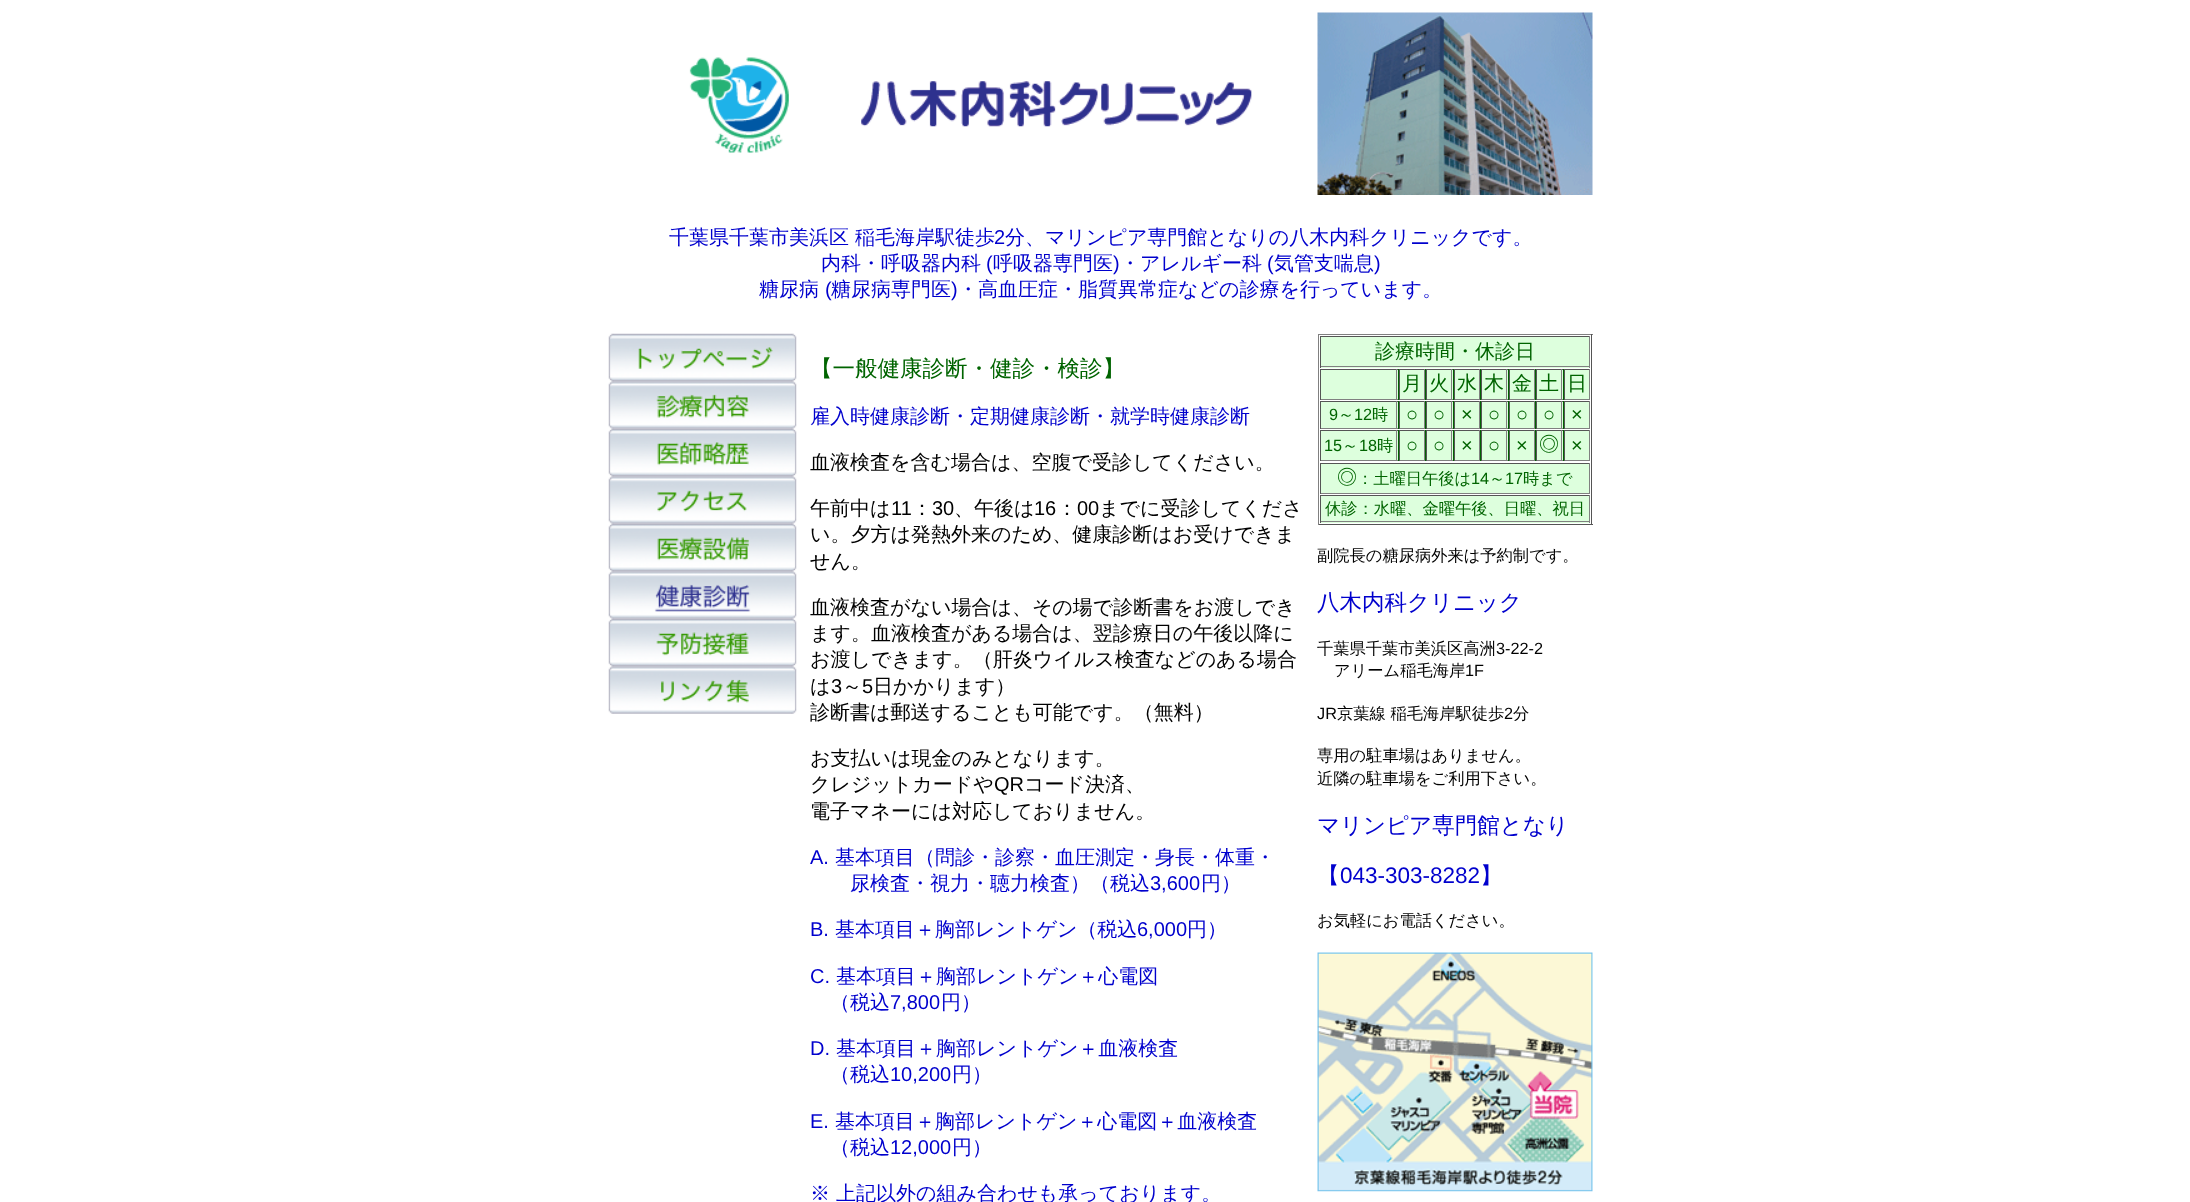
<svg xmlns="http://www.w3.org/2000/svg" width="2190" height="1202">
	<rect width="100%" height="100%" fill="#FFFFFF" />
	<image x="689" y="57" width="100" height="96" href="assets/img1.png" />
	<image x="861" y="81" width="391" height="46" href="assets/img2.png" />
	<image x="1317" y="12" width="276" height="183" href="assets/img3.png" />
	<text x="669" y="244" font-family="WenQuanYi Zen Hei" font-size="20" font-weight="500" fill="#0000CD">千葉県千葉市美浜区 稲毛海岸駅徒歩</text>
	<text x="994" y="244" font-family="Liberation Sans" font-size="20" fill="#0000CD">2</text>
	<g font-family="WenQuanYi Zen Hei" font-size="20" font-weight="500" fill="#0000CD">
		<text x="1005" y="244">分、マリンピア専門館となりの八木内科クリニックです。</text>
		<text x="821" y="270">内科・呼吸器内科</text>
	</g>
	<text x="986" y="270" font-family="Liberation Sans" font-size="20" fill="#0000CD">(</text>
	<text x="993" y="270" font-family="WenQuanYi Zen Hei" font-size="20" font-weight="500" fill="#0000CD">呼吸器専門医</text>
	<text x="1113" y="270" font-family="Liberation Sans" font-size="20" fill="#0000CD">)</text>
	<text x="1120" y="270" font-family="WenQuanYi Zen Hei" font-size="20" font-weight="500" fill="#0000CD">・アレルギー科</text>
	<text x="1267" y="270" font-family="Liberation Sans" font-size="20" fill="#0000CD">(</text>
	<text x="1274" y="270" font-family="WenQuanYi Zen Hei" font-size="20" font-weight="500" fill="#0000CD">気管支喘息</text>
	<text x="1374" y="270" font-family="Liberation Sans" font-size="20" fill="#0000CD">)</text>
	<text x="759" y="296" font-family="WenQuanYi Zen Hei" font-size="20" font-weight="500" fill="#0000CD">糖尿病</text>
	<text x="825" y="296" font-family="Liberation Sans" font-size="20" fill="#0000CD">(</text>
	<text x="831" y="296" font-family="WenQuanYi Zen Hei" font-size="20" font-weight="500" fill="#0000CD">糖尿病専門医</text>
	<text x="951" y="296" font-family="Liberation Sans" font-size="20" fill="#0000CD">)</text>
	<text x="958" y="296" font-family="WenQuanYi Zen Hei" font-size="20" font-weight="500" fill="#0000CD">・高血圧症・脂質異常症などの診療を行っています。</text>
	<image x="608" y="333" width="189" height="49" href="assets/img4.png" />
	<image x="608" y="381" width="189" height="48" href="assets/img5.png" />
	<image x="608" y="428" width="189" height="49" href="assets/img6.png" />
	<image x="608" y="476" width="189" height="48" href="assets/img7.png" />
	<image x="608" y="523" width="189" height="49" href="assets/img8.png" />
	<image x="608" y="571" width="189" height="48" href="assets/img9.png" />
	<image x="608" y="618" width="189" height="49" href="assets/img10.png" />
	<image x="608" y="666" width="189" height="48" href="assets/img11.png" />
	<text x="810" y="376" font-family="WenQuanYi Zen Hei" font-size="22.5" font-weight="500" fill="#006400">【一般健康診断・健診・検診】</text>
	<text x="810" y="423" font-family="WenQuanYi Zen Hei" font-size="20" font-weight="500" fill="#0000CD">雇入時健康診断・定期健康診断・就学時健康診断</text>
	<g font-family="WenQuanYi Zen Hei" font-size="20" font-weight="500" fill="#000000">
		<text x="810" y="469">血液検査を含む場合は、空腹で受診してください。</text>
		<text x="810" y="515">午前中は</text>
	</g>
	<text x="891" y="515" font-family="Liberation Sans" font-size="20" fill="#000000">11</text>
	<text x="912" y="515" font-family="WenQuanYi Zen Hei" font-size="20" font-weight="500" fill="#000000">：</text>
	<text x="932" y="515" font-family="Liberation Sans" font-size="20" fill="#000000">30</text>
	<text x="954" y="515" font-family="WenQuanYi Zen Hei" font-size="20" font-weight="500" fill="#000000">、午後は</text>
	<text x="1034" y="515" font-family="Liberation Sans" font-size="20" fill="#000000">16</text>
	<text x="1057" y="515" font-family="WenQuanYi Zen Hei" font-size="20" font-weight="500" fill="#000000">：</text>
	<text x="1077" y="515" font-family="Liberation Sans" font-size="20" fill="#000000">00</text>
	<g font-family="WenQuanYi Zen Hei" font-size="20" font-weight="500" fill="#000000">
		<text x="1099" y="515">までに受診してくださ</text>
		<text x="810" y="541">い。夕方は発熱外来のため、健康診断はお受けできま</text>
		<text x="810" y="568">せん。</text>
		<text x="810" y="614">血液検査がない場合は、その場で診断書をお渡しでき</text>
		<text x="810" y="640">ます。血液検査がある場合は、翌診療日の午後以降に</text>
		<text x="810" y="666">お渡しできます。（肝炎ウイルス検査などのある場合</text>
		<text x="810" y="693">は</text>
	</g>
	<text x="831" y="693" font-family="Liberation Sans" font-size="20" fill="#000000">3</text>
	<text x="842" y="693" font-family="WenQuanYi Zen Hei" font-size="20" font-weight="500" fill="#000000">～</text>
	<text x="862" y="693" font-family="Liberation Sans" font-size="20" fill="#000000">5</text>
	<g font-family="WenQuanYi Zen Hei" font-size="20" font-weight="500" fill="#000000">
		<text x="873" y="693">日かかります）</text>
		<text x="810" y="719">診断書は郵送することも可能です。（無料）</text>
		<text x="810" y="765">お支払いは現金のみとなります。</text>
		<text x="810" y="791">クレジットカードや</text>
	</g>
	<text x="994" y="791" font-family="Liberation Sans" font-size="20" fill="#000000">QR</text>
	<g font-family="WenQuanYi Zen Hei" font-size="20" font-weight="500" fill="#000000">
		<text x="1024" y="791">コード決済、</text>
		<text x="810" y="818">電子マネーには対応しておりません。</text>
	</g>
	<text x="810" y="864" font-family="Liberation Sans" font-size="20" fill="#0000CD">A.</text>
	<g font-family="WenQuanYi Zen Hei" font-size="20" font-weight="500" fill="#0000CD">
		<text x="835" y="864">基本項目（問診・診察・血圧測定・身長・体重・</text>
		<text x="850" y="890">尿検査・視力・聴力検査）（税込</text>
	</g>
	<text x="1150" y="890" font-family="Liberation Sans" font-size="20" fill="#0000CD">3,600</text>
	<text x="1201" y="890" font-family="WenQuanYi Zen Hei" font-size="20" font-weight="500" fill="#0000CD">円）</text>
	<text x="810" y="936" font-family="Liberation Sans" font-size="20" fill="#0000CD">B.</text>
	<text x="835" y="936" font-family="WenQuanYi Zen Hei" font-size="20" font-weight="500" fill="#0000CD">基本項目＋胸部レントゲン（税込</text>
	<text x="1137" y="936" font-family="Liberation Sans" font-size="20" fill="#0000CD">6,000</text>
	<text x="1187" y="936" font-family="WenQuanYi Zen Hei" font-size="20" font-weight="500" fill="#0000CD">円）</text>
	<text x="810" y="983" font-family="Liberation Sans" font-size="20" fill="#0000CD">C.</text>
	<g font-family="WenQuanYi Zen Hei" font-size="20" font-weight="500" fill="#0000CD">
		<text x="836" y="983">基本項目＋胸部レントゲン＋心電図</text>
		<text x="830" y="1009">（税込</text>
	</g>
	<text x="890" y="1009" font-family="Liberation Sans" font-size="20" fill="#0000CD">7,800</text>
	<text x="941" y="1009" font-family="WenQuanYi Zen Hei" font-size="20" font-weight="500" fill="#0000CD">円）</text>
	<text x="810" y="1055" font-family="Liberation Sans" font-size="20" fill="#0000CD">D.</text>
	<g font-family="WenQuanYi Zen Hei" font-size="20" font-weight="500" fill="#0000CD">
		<text x="836" y="1055">基本項目＋胸部レントゲン＋血液検査</text>
		<text x="830" y="1081">（税込</text>
	</g>
	<text x="890" y="1081" font-family="Liberation Sans" font-size="20" fill="#0000CD">10,200</text>
	<text x="952" y="1081" font-family="WenQuanYi Zen Hei" font-size="20" font-weight="500" fill="#0000CD">円）</text>
	<text x="810" y="1128" font-family="Liberation Sans" font-size="20" fill="#0000CD">E.</text>
	<g font-family="WenQuanYi Zen Hei" font-size="20" font-weight="500" fill="#0000CD">
		<text x="835" y="1128">基本項目＋胸部レントゲン＋心電図＋血液検査</text>
		<text x="830" y="1154">（税込</text>
	</g>
	<text x="890" y="1154" font-family="Liberation Sans" font-size="20" fill="#0000CD">12,000</text>
	<g font-family="WenQuanYi Zen Hei" font-size="20" font-weight="500" fill="#0000CD">
		<text x="952" y="1154">円）</text>
		<text x="810" y="1200">※ 上記以外の組み合わせも承っております。</text>
	</g>
	<rect x="1318" y="334" width="275" height="1" fill="#808080" />
	<rect x="1591" y="334" width="1" height="191" fill="#555555" />
	<rect x="1318" y="524" width="275" height="1" fill="#555555" />
	<rect x="1318" y="334" width="1" height="191" fill="#808080" />
	<rect x="1321" y="337" width="268" height="31" fill="#DDFFDD" />
	<rect x="1320" y="336" width="270" height="1" fill="#555555" />
	<rect x="1589" y="336" width="1" height="32" fill="#808080" />
	<rect x="1320" y="366" width="270" height="1" fill="#808080" />
	<rect x="1320" y="336" width="1" height="32" fill="#555555" />
	<text x="1375" y="358" font-family="WenQuanYi Zen Hei" font-size="20" font-weight="500" fill="#006400">診療時間・休診日</text>
	<rect x="1398" y="369" width="166" height="31" fill="#006400" />
	<rect x="1321" y="370" width="77" height="29" fill="#DDFFDD" />
	<rect x="1320" y="369" width="78" height="1" fill="#555555" />
	<rect x="1396" y="369" width="1" height="31" fill="#808080" />
	<rect x="1320" y="399" width="78" height="1" fill="#808080" />
	<rect x="1320" y="369" width="1" height="31" fill="#555555" />
	<rect x="1400" y="370" width="24" height="29" fill="#DDFFDD" />
	<rect x="1399" y="369" width="26" height="1" fill="#555555" />
	<rect x="1424" y="369" width="1" height="31" fill="#808080" />
	<rect x="1399" y="399" width="26" height="1" fill="#808080" />
	<rect x="1399" y="369" width="1" height="31" fill="#555555" />
	<text x="1402" y="390" font-family="WenQuanYi Zen Hei" font-size="20" font-weight="500" fill="#006400">月</text>
	<rect x="1427" y="370" width="26" height="29" fill="#DDFFDD" />
	<rect x="1426" y="369" width="27" height="1" fill="#555555" />
	<rect x="1451" y="369" width="1" height="31" fill="#808080" />
	<rect x="1426" y="399" width="27" height="1" fill="#808080" />
	<rect x="1426" y="369" width="1" height="31" fill="#555555" />
	<text x="1429" y="390" font-family="WenQuanYi Zen Hei" font-size="20" font-weight="500" fill="#006400">火</text>
	<rect x="1455" y="370" width="24" height="29" fill="#DDFFDD" />
	<rect x="1454" y="369" width="26" height="1" fill="#555555" />
	<rect x="1479" y="369" width="1" height="31" fill="#808080" />
	<rect x="1454" y="399" width="26" height="1" fill="#808080" />
	<rect x="1454" y="369" width="1" height="31" fill="#555555" />
	<text x="1457" y="390" font-family="WenQuanYi Zen Hei" font-size="20" font-weight="500" fill="#006400">水</text>
	<rect x="1482" y="370" width="26" height="29" fill="#DDFFDD" />
	<rect x="1481" y="369" width="27" height="1" fill="#555555" />
	<rect x="1506" y="369" width="1" height="31" fill="#808080" />
	<rect x="1481" y="399" width="27" height="1" fill="#808080" />
	<rect x="1481" y="369" width="1" height="31" fill="#555555" />
	<text x="1484" y="390" font-family="WenQuanYi Zen Hei" font-size="20" font-weight="500" fill="#006400">木</text>
	<rect x="1510" y="370" width="24" height="29" fill="#DDFFDD" />
	<rect x="1509" y="369" width="26" height="1" fill="#555555" />
	<rect x="1534" y="369" width="1" height="31" fill="#808080" />
	<rect x="1509" y="399" width="26" height="1" fill="#808080" />
	<rect x="1509" y="369" width="1" height="31" fill="#555555" />
	<text x="1512" y="390" font-family="WenQuanYi Zen Hei" font-size="20" font-weight="500" fill="#006400">金</text>
	<rect x="1537" y="370" width="26" height="29" fill="#DDFFDD" />
	<rect x="1536" y="369" width="27" height="1" fill="#555555" />
	<rect x="1561" y="369" width="1" height="31" fill="#808080" />
	<rect x="1536" y="399" width="27" height="1" fill="#808080" />
	<rect x="1536" y="369" width="1" height="31" fill="#555555" />
	<text x="1539" y="390" font-family="WenQuanYi Zen Hei" font-size="20" font-weight="500" fill="#006400">土</text>
	<rect x="1565" y="370" width="24" height="29" fill="#DDFFDD" />
	<rect x="1564" y="369" width="26" height="1" fill="#555555" />
	<rect x="1589" y="369" width="1" height="31" fill="#808080" />
	<rect x="1564" y="399" width="26" height="1" fill="#808080" />
	<rect x="1564" y="369" width="1" height="31" fill="#555555" />
	<text x="1567" y="390" font-family="WenQuanYi Zen Hei" font-size="20" font-weight="500" fill="#006400">日</text>
	<rect x="1398" y="401" width="166" height="28" fill="#006400" />
	<rect x="1321" y="402" width="77" height="26" fill="#DDFFDD" />
	<rect x="1320" y="401" width="78" height="1" fill="#555555" />
	<rect x="1396" y="401" width="1" height="28" fill="#808080" />
	<rect x="1320" y="428" width="78" height="1" fill="#808080" />
	<rect x="1320" y="401" width="1" height="28" fill="#555555" />
	<text x="1329" y="420" font-family="Liberation Sans" font-size="16.25" fill="#006400">9</text>
	<text x="1338" y="420" font-family="WenQuanYi Zen Hei" font-size="16.25" font-weight="500" fill="#006400">～</text>
	<text x="1354" y="420" font-family="Liberation Sans" font-size="16.25" fill="#006400">12</text>
	<text x="1372" y="420" font-family="WenQuanYi Zen Hei" font-size="16.25" font-weight="500" fill="#006400">時</text>
	<rect x="1400" y="402" width="24" height="26" fill="#DDFFDD" />
	<rect x="1399" y="401" width="26" height="1" fill="#555555" />
	<rect x="1424" y="401" width="1" height="28" fill="#808080" />
	<rect x="1399" y="428" width="26" height="1" fill="#808080" />
	<rect x="1399" y="401" width="1" height="28" fill="#555555" />
	<text x="1406" y="421" font-family="Liberation Sans" font-size="20" fill="#006400">○</text>
	<rect x="1427" y="402" width="26" height="26" fill="#DDFFDD" />
	<rect x="1426" y="401" width="27" height="1" fill="#555555" />
	<rect x="1451" y="401" width="1" height="28" fill="#808080" />
	<rect x="1426" y="428" width="27" height="1" fill="#808080" />
	<rect x="1426" y="401" width="1" height="28" fill="#555555" />
	<text x="1433" y="421" font-family="Liberation Sans" font-size="20" fill="#006400">○</text>
	<rect x="1455" y="402" width="24" height="26" fill="#DDFFDD" />
	<rect x="1454" y="401" width="26" height="1" fill="#555555" />
	<rect x="1479" y="401" width="1" height="28" fill="#808080" />
	<rect x="1454" y="428" width="26" height="1" fill="#808080" />
	<rect x="1454" y="401" width="1" height="28" fill="#555555" />
	<text x="1461" y="421" font-family="Liberation Sans" font-size="20" fill="#006400">×</text>
	<rect x="1482" y="402" width="26" height="26" fill="#DDFFDD" />
	<rect x="1481" y="401" width="27" height="1" fill="#555555" />
	<rect x="1506" y="401" width="1" height="28" fill="#808080" />
	<rect x="1481" y="428" width="27" height="1" fill="#808080" />
	<rect x="1481" y="401" width="1" height="28" fill="#555555" />
	<text x="1488" y="421" font-family="Liberation Sans" font-size="20" fill="#006400">○</text>
	<rect x="1510" y="402" width="24" height="26" fill="#DDFFDD" />
	<rect x="1509" y="401" width="26" height="1" fill="#555555" />
	<rect x="1534" y="401" width="1" height="28" fill="#808080" />
	<rect x="1509" y="428" width="26" height="1" fill="#808080" />
	<rect x="1509" y="401" width="1" height="28" fill="#555555" />
	<text x="1516" y="421" font-family="Liberation Sans" font-size="20" fill="#006400">○</text>
	<rect x="1537" y="402" width="26" height="26" fill="#DDFFDD" />
	<rect x="1536" y="401" width="27" height="1" fill="#555555" />
	<rect x="1561" y="401" width="1" height="28" fill="#808080" />
	<rect x="1536" y="428" width="27" height="1" fill="#808080" />
	<rect x="1536" y="401" width="1" height="28" fill="#555555" />
	<text x="1543" y="421" font-family="Liberation Sans" font-size="20" fill="#006400">○</text>
	<rect x="1565" y="402" width="24" height="26" fill="#DDFFDD" />
	<rect x="1564" y="401" width="26" height="1" fill="#555555" />
	<rect x="1589" y="401" width="1" height="28" fill="#808080" />
	<rect x="1564" y="428" width="26" height="1" fill="#808080" />
	<rect x="1564" y="401" width="1" height="28" fill="#555555" />
	<text x="1571" y="421" font-family="Liberation Sans" font-size="20" fill="#006400">×</text>
	<rect x="1398" y="430" width="166" height="31" fill="#006400" />
	<rect x="1321" y="431" width="77" height="29" fill="#DDFFDD" />
	<rect x="1320" y="430" width="78" height="1" fill="#555555" />
	<rect x="1396" y="430" width="1" height="31" fill="#808080" />
	<rect x="1320" y="460" width="78" height="1" fill="#808080" />
	<rect x="1320" y="430" width="1" height="31" fill="#555555" />
	<text x="1324" y="451" font-family="Liberation Sans" font-size="16.25" fill="#006400">15</text>
	<text x="1342" y="451" font-family="WenQuanYi Zen Hei" font-size="16.25" font-weight="500" fill="#006400">～</text>
	<text x="1359" y="451" font-family="Liberation Sans" font-size="16.25" fill="#006400">18</text>
	<text x="1377" y="451" font-family="WenQuanYi Zen Hei" font-size="16.25" font-weight="500" fill="#006400">時</text>
	<rect x="1400" y="431" width="24" height="29" fill="#DDFFDD" />
	<rect x="1399" y="430" width="26" height="1" fill="#555555" />
	<rect x="1424" y="430" width="1" height="31" fill="#808080" />
	<rect x="1399" y="460" width="26" height="1" fill="#808080" />
	<rect x="1399" y="430" width="1" height="31" fill="#555555" />
	<text x="1406" y="452" font-family="Liberation Sans" font-size="20" fill="#006400">○</text>
	<rect x="1427" y="431" width="26" height="29" fill="#DDFFDD" />
	<rect x="1426" y="430" width="27" height="1" fill="#555555" />
	<rect x="1451" y="430" width="1" height="31" fill="#808080" />
	<rect x="1426" y="460" width="27" height="1" fill="#808080" />
	<rect x="1426" y="430" width="1" height="31" fill="#555555" />
	<text x="1433" y="452" font-family="Liberation Sans" font-size="20" fill="#006400">○</text>
	<rect x="1455" y="431" width="24" height="29" fill="#DDFFDD" />
	<rect x="1454" y="430" width="26" height="1" fill="#555555" />
	<rect x="1479" y="430" width="1" height="31" fill="#808080" />
	<rect x="1454" y="460" width="26" height="1" fill="#808080" />
	<rect x="1454" y="430" width="1" height="31" fill="#555555" />
	<text x="1461" y="452" font-family="Liberation Sans" font-size="20" fill="#006400">×</text>
	<rect x="1482" y="431" width="26" height="29" fill="#DDFFDD" />
	<rect x="1481" y="430" width="27" height="1" fill="#555555" />
	<rect x="1506" y="430" width="1" height="31" fill="#808080" />
	<rect x="1481" y="460" width="27" height="1" fill="#808080" />
	<rect x="1481" y="430" width="1" height="31" fill="#555555" />
	<text x="1488" y="452" font-family="Liberation Sans" font-size="20" fill="#006400">○</text>
	<rect x="1510" y="431" width="24" height="29" fill="#DDFFDD" />
	<rect x="1509" y="430" width="26" height="1" fill="#555555" />
	<rect x="1534" y="430" width="1" height="31" fill="#808080" />
	<rect x="1509" y="460" width="26" height="1" fill="#808080" />
	<rect x="1509" y="430" width="1" height="31" fill="#555555" />
	<text x="1516" y="452" font-family="Liberation Sans" font-size="20" fill="#006400">×</text>
	<rect x="1537" y="431" width="26" height="29" fill="#DDFFDD" />
	<rect x="1536" y="430" width="27" height="1" fill="#555555" />
	<rect x="1561" y="430" width="1" height="31" fill="#808080" />
	<rect x="1536" y="460" width="27" height="1" fill="#808080" />
	<rect x="1536" y="430" width="1" height="31" fill="#555555" />
	<text x="1539" y="451" font-family="WenQuanYi Zen Hei" font-size="20" font-weight="500" fill="#006400">◎</text>
	<rect x="1565" y="431" width="24" height="29" fill="#DDFFDD" />
	<rect x="1564" y="430" width="26" height="1" fill="#555555" />
	<rect x="1589" y="430" width="1" height="31" fill="#808080" />
	<rect x="1564" y="460" width="26" height="1" fill="#808080" />
	<rect x="1564" y="430" width="1" height="31" fill="#555555" />
	<text x="1571" y="452" font-family="Liberation Sans" font-size="20" fill="#006400">×</text>
	<rect x="1321" y="464" width="268" height="29" fill="#DDFFDD" />
	<rect x="1320" y="463" width="270" height="1" fill="#555555" />
	<rect x="1589" y="463" width="1" height="31" fill="#808080" />
	<rect x="1320" y="493" width="270" height="1" fill="#808080" />
	<rect x="1320" y="463" width="1" height="31" fill="#555555" />
	<text x="1337" y="484" font-family="WenQuanYi Zen Hei" font-size="20" font-weight="500" fill="#006400">◎</text>
	<text x="1357" y="484" font-family="WenQuanYi Zen Hei" font-size="16.25" font-weight="500" fill="#006400">：土曜日午後は</text>
	<text x="1471" y="484" font-family="Liberation Sans" font-size="16.25" fill="#006400">14</text>
	<text x="1489" y="484" font-family="WenQuanYi Zen Hei" font-size="16.25" font-weight="500" fill="#006400">～</text>
	<text x="1505" y="484" font-family="Liberation Sans" font-size="16.25" fill="#006400">17</text>
	<text x="1523" y="484" font-family="WenQuanYi Zen Hei" font-size="16.25" font-weight="500" fill="#006400">時まで</text>
	<rect x="1321" y="496" width="268" height="27" fill="#DDFFDD" />
	<rect x="1320" y="495" width="270" height="1" fill="#555555" />
	<rect x="1589" y="495" width="1" height="28" fill="#808080" />
	<rect x="1320" y="521" width="270" height="1" fill="#808080" />
	<rect x="1320" y="495" width="1" height="28" fill="#555555" />
	<text x="1325" y="514" font-family="WenQuanYi Zen Hei" font-size="16.25" font-weight="500" fill="#006400">休診：水曜、金曜午後、日曜、祝日</text>
	<text x="1317" y="561" font-family="WenQuanYi Zen Hei" font-size="16.25" font-weight="500" fill="#000000">副院長の糖尿病外来は予約制です。</text>
	<text x="1317" y="610" font-family="WenQuanYi Zen Hei" font-size="22.5" font-weight="500" fill="#0000CD">八木内科クリニック</text>
	<text x="1317" y="654" font-family="WenQuanYi Zen Hei" font-size="16.25" font-weight="500" fill="#000000">千葉県千葉市美浜区高洲</text>
	<text x="1496" y="654" font-family="Liberation Sans" font-size="16.25" fill="#000000">3-22-2</text>
	<text x="1334" y="676" font-family="WenQuanYi Zen Hei" font-size="16.25" font-weight="500" fill="#000000">アリーム稲毛海岸</text>
	<g font-family="Liberation Sans" font-size="16.25" fill="#000000">
		<text x="1465" y="676">1F</text>
		<text x="1317" y="719">JR</text>
	</g>
	<text x="1337" y="719" font-family="WenQuanYi Zen Hei" font-size="16.25" font-weight="500" fill="#000000">京葉線 稲毛海岸駅徒歩</text>
	<text x="1504" y="719" font-family="Liberation Sans" font-size="16.25" fill="#000000">2</text>
	<g font-family="WenQuanYi Zen Hei" font-size="16.25" font-weight="500" fill="#000000">
		<text x="1513" y="719">分</text>
		<text x="1317" y="761">専用の駐車場はありません。</text>
		<text x="1317" y="784">近隣の駐車場をご利用下さい。</text>
	</g>
	<g font-family="WenQuanYi Zen Hei" font-size="22.5" font-weight="500" fill="#0000CD">
		<text x="1317" y="833">マリンピア専門館となり</text>
		<text x="1317" y="883">【</text>
	</g>
	<text x="1340" y="883" font-family="Liberation Sans" font-size="22.5" fill="#0000CD">043-303-8282</text>
	<text x="1480" y="883" font-family="WenQuanYi Zen Hei" font-size="22.5" font-weight="500" fill="#0000CD">】</text>
	<text x="1317" y="926" font-family="WenQuanYi Zen Hei" font-size="16.25" font-weight="500" fill="#000000">お気軽にお電話ください。</text>
	<image x="1317" y="952" width="276" height="240" href="assets/img12.png" />
</svg>
